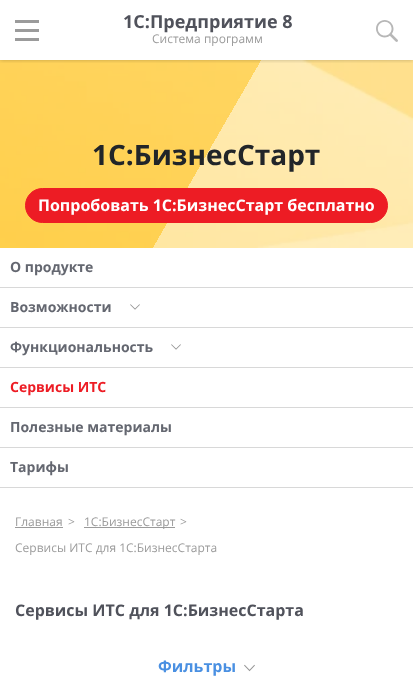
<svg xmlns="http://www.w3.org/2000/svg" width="413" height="682">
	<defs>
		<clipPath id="clip1"><rect x="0" y="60" width="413" height="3" /></clipPath>
	</defs>
	<rect width="100%" height="100%" fill="#FFFFFF" />
	<image x="0" y="60" width="413" height="188" href="assets/img3.png" />
	<g clip-path="url(#clip1)">
		<rect x="0" y="0" width="413" height="60" fill="#000000" fill-opacity="0.25" filter="blur(2px)" />
	</g>
	<image x="15" y="20" width="24" height="21" href="assets/img1.png" />
	<text x="123" y="28" font-family="Open Sans" font-size="18" font-weight="700" fill="#50525B">1С:Предприятие 8</text>
	<text x="152" y="43" font-family="Open Sans" font-size="12" fill="#9B9B9B">Система программ</text>
	<image x="376" y="20" width="22" height="22" href="assets/img2.png" />
	<text x="92" y="165" font-family="Open Sans" font-size="28" font-weight="700" fill="#212529">1С:БизнесСтарт</text>
	<rect x="25.5" y="188.5" width="362" height="34" rx="17" fill="#ED1C24" stroke="#ED1C24" />
	<text x="38" y="211" font-family="Open Sans" font-size="16" font-weight="700" fill="#FFFFFF">Попробовать 1С:БизнесСтарт бесплатно</text>
	<rect x="0" y="287" width="413" height="1" fill="#D8D8D8" />
	<text x="10" y="272" font-family="Open Sans" font-size="14" font-weight="700" fill="#646770">О продукте</text>
	<rect x="0" y="327" width="413" height="1" fill="#D8D8D8" />
	<text x="10" y="312" font-family="Open Sans" font-size="14" font-weight="700" fill="#646770">Возможности</text>
	<image x="130" y="304" width="10" height="6" href="assets/img4.png" />
	<rect x="0" y="367" width="413" height="1" fill="#D8D8D8" />
	<text x="10" y="352" font-family="Open Sans" font-size="14" font-weight="700" fill="#646770">Функциональность</text>
	<image x="171" y="344" width="10" height="6" href="assets/img4.png" />
	<rect x="0" y="407" width="413" height="1" fill="#D8D8D8" />
	<text x="10" y="392" font-family="Open Sans" font-size="14" font-weight="700" fill="#ED1C24">Сервисы ИТС</text>
	<rect x="0" y="447" width="413" height="1" fill="#D8D8D8" />
	<text x="10" y="432" font-family="Open Sans" font-size="14" font-weight="700" fill="#646770">Полезные материалы</text>
	<rect x="0" y="487" width="413" height="1" fill="#D8D8D8" />
	<text x="10" y="472" font-family="Open Sans" font-size="14" font-weight="700" fill="#646770">Тарифы</text>
	<text x="15" y="526" font-family="Open Sans" font-size="12" fill="#9B9B9B">Главная</text>
	<rect x="15" y="527" width="48" height="1" fill="#9B9B9B" />
	<text x="68" y="526" font-family="Open Sans" font-size="12" fill="#9B9B9B">&gt;</text>
	<rect x="84" y="527" width="91" height="1" fill="#9B9B9B" />
	<g font-family="Open Sans" font-size="12" fill="#9B9B9B">
		<text x="84" y="526">1С:БизнесСтарт</text>
		<text x="180" y="526">&gt;</text>
		<text x="15" y="552">Сервисы ИТС для 1С:БизнесСтарта</text>
	</g>
	<text x="15" y="616" font-family="Open Sans" font-size="16" font-weight="700" fill="#50525B">Сервисы ИТС для 1С:БизнесСтарта</text>
	<text x="158" y="672" font-family="Open Sans" font-size="16" font-weight="700" fill="#4A90E2">Фильтры</text>
	<image x="244" y="664" width="11" height="8" href="assets/img5.png" />
</svg>
